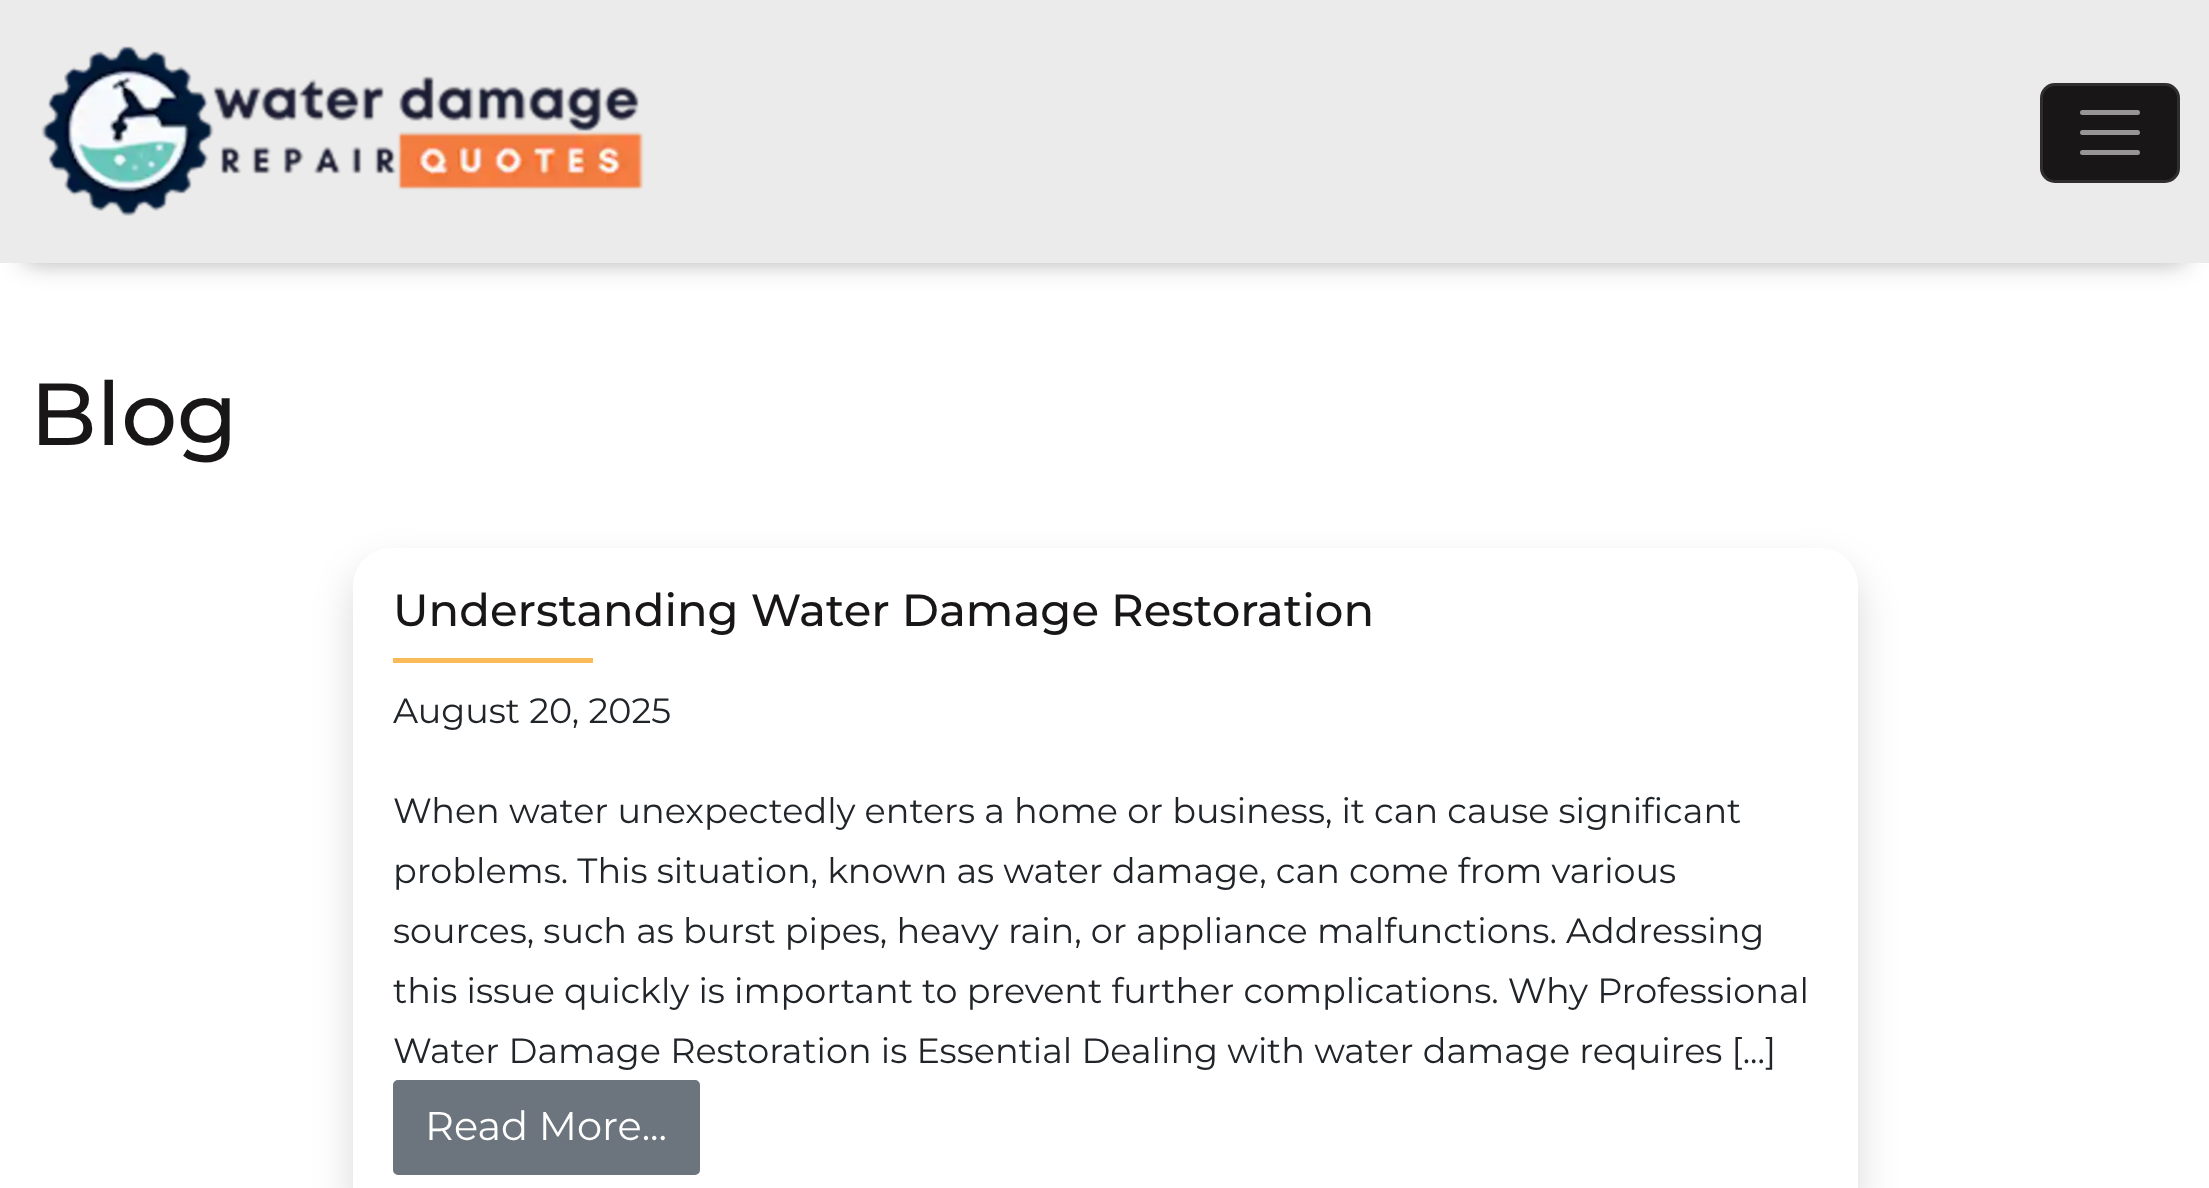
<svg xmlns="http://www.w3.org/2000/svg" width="2209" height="1188">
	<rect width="100%" height="100%" fill="#FFFFFF" />
	<rect x="25" y="50" width="2160" height="213" fill="#111111" fill-opacity="0.33" filter="blur(12.5px)" />
	<rect x="0" y="0" width="2209" height="263" fill="#EBEBEB" />
	<image x="41" y="46" width="603" height="170" href="assets/img1.png" />
	<rect x="2040" y="83" width="140" height="100" rx="15" fill="#181617" />
	<rect x="2041.5" y="84.5" width="137" height="97" rx="13.5" fill="none" stroke="#FFFFFF" stroke-opacity="0.1" stroke-width="3" />
	<path d="M2082.5 112.5H2137.5M2082.5 132.5H2137.5M2082.5 152.5H2137.5" fill="none" stroke="#979697" stroke-width="5" stroke-linecap="round" />
	<text x="30" y="445" font-family="Montserrat" font-size="88" font-weight="500" fill="#181617">Blog</text>
	<rect x="353" y="568" width="1505" height="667" rx="38" fill="#000000" fill-opacity="0.15" filter="blur(20px)" />
	<path d="M391 548H1820C1841 548 1858 565 1858 586V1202C1858 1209 1852 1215 1845 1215H366C359 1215 353 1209 353 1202V586C353 565 370 548 391 548Z" fill="#FFFFFF" />
	<text x="393" y="626" font-family="Montserrat" font-size="45" font-weight="500" fill="#181617">Understanding Water Damage Restoration</text>
	<rect x="393" y="658" width="200" height="5" fill="#FABA59" />
	<g font-family="Montserrat" font-size="35" fill="#212529">
		<text x="393" y="723">August 20, 2025</text>
		<text x="393" y="823">When water unexpectedly enters a home or business, it can cause significant</text>
		<text x="393" y="883">problems. This situation, known as water damage, can come from various</text>
		<text x="393" y="943">sources, such as burst pipes, heavy rain, or appliance malfunctions. Addressing</text>
		<text x="393" y="1003">this issue quickly is important to prevent further complications. Why Professional</text>
		<text x="393" y="1063">Water Damage Restoration is Essential Dealing with water damage requires [...]</text>
	</g>
	<rect x="394.5" y="1081.5" width="304" height="92" rx="3.5" fill="#6C757D" stroke="#6C757D" stroke-width="3" />
	<text x="425" y="1140" font-family="Montserrat" font-size="40" fill="#FFFFFF">Read More...</text>
</svg>
